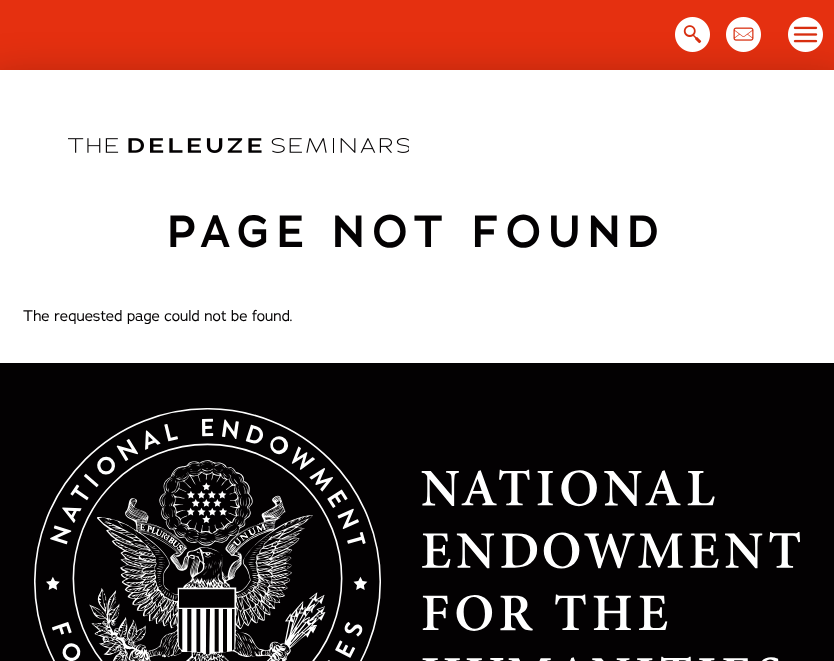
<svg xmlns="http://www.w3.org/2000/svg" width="834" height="661">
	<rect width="100%" height="100%" fill="#E53010" />
	<rect x="-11" y="81" width="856" height="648" fill="#030102" fill-opacity="0.3" filter="blur(22.5px)" />
	<image x="675" y="17" width="35" height="35" href="assets/img1.png" />
	<image x="726" y="17" width="35" height="35" href="assets/img2.png" />
	<image x="788" y="17" width="35" height="35" href="assets/img3.png" />
	<rect x="0" y="70" width="834" height="293" fill="#FFFFFF" />
	<image x="68" y="138" width="341" height="15" href="assets/img4.png" />
	<text x="167" y="247" font-family="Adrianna" font-size="45" font-weight="600" letter-spacing="6.75" fill="#030102">PAGE NOT FOUND</text>
	<text x="23" y="321" font-family="Adrianna" font-size="15" fill="#030102">The requested page could not be found.</text>
	<rect x="0" y="363" width="834" height="298" fill="#030102" />
	<image x="34" y="408" width="766" height="253" href="assets/img5.png" />
</svg>
